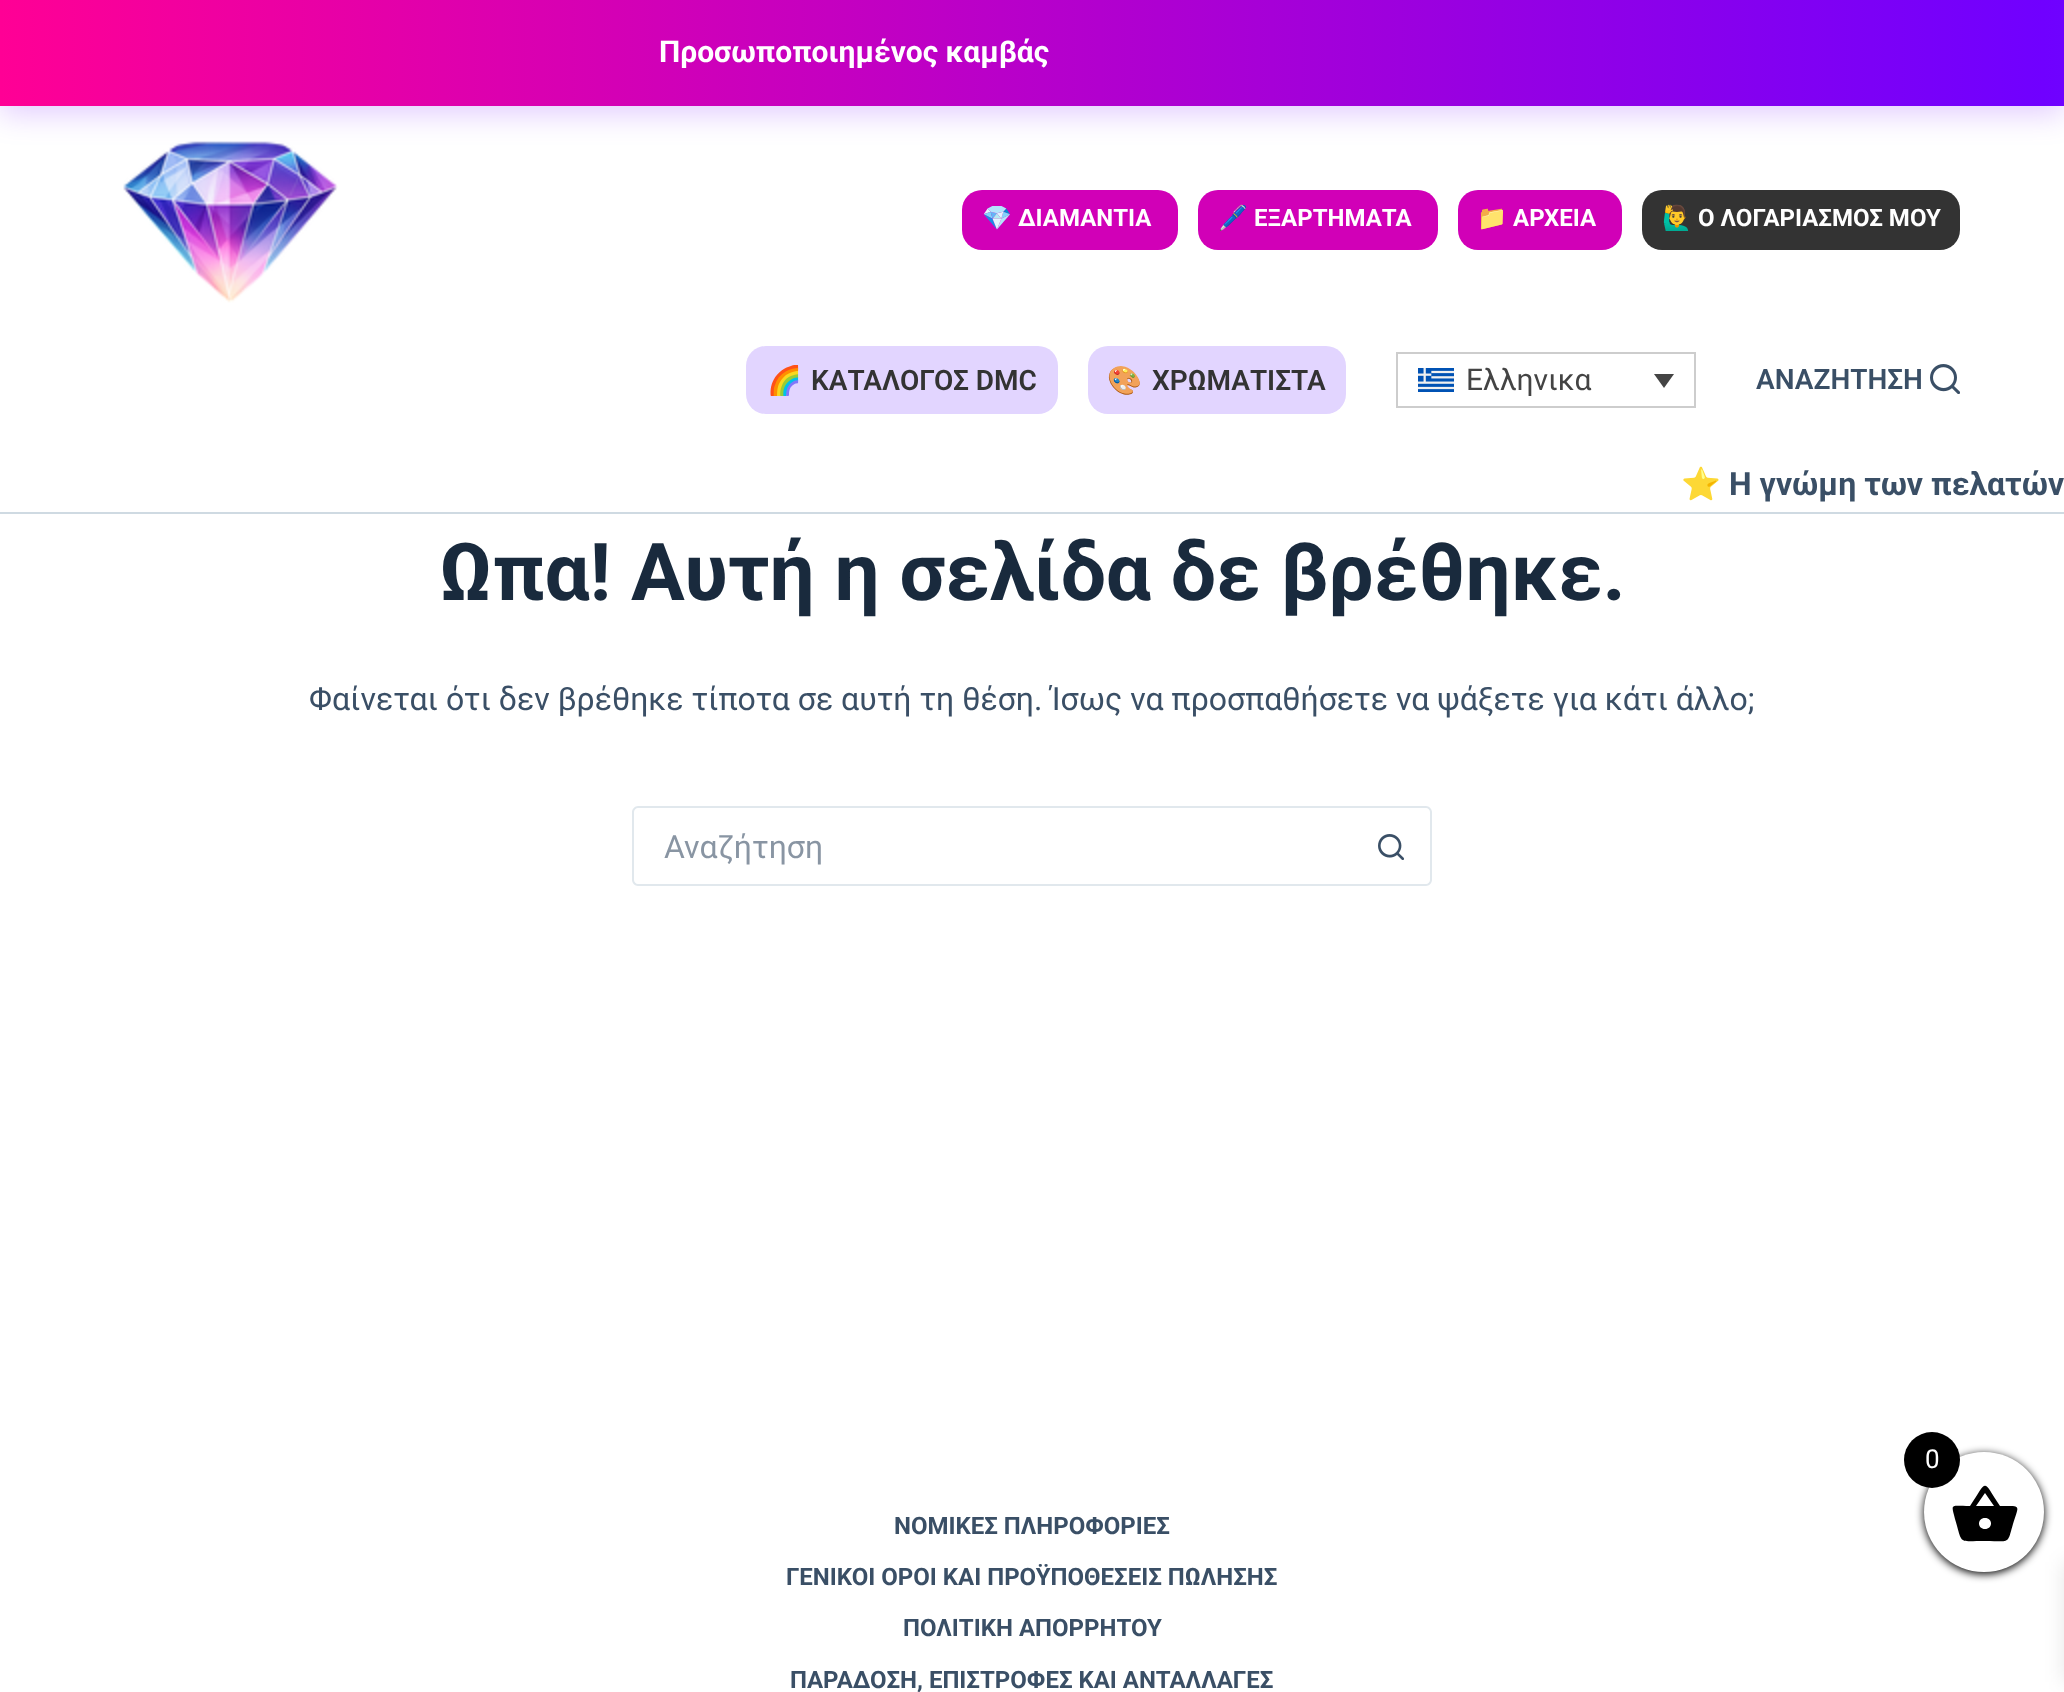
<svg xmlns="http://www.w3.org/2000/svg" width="2064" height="1692">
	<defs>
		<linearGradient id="g1" gradientUnits="userSpaceOnUse" x1="0" y1="53" x2="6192" y2="53"><stop offset="0" stop-color="#FF0095" /><stop offset="0.33" stop-color="#7000FF" /><stop offset="0.67" stop-color="#00D9FF" /><stop offset="1" stop-color="#FF0095" /></linearGradient>
	</defs>
	<rect width="100%" height="100%" fill="#FFFFFF" />
	<image x="123" y="141" width="215" height="162" href="assets/img1.png" />
	<rect x="0" y="8" width="2064" height="106" fill="#7000FF" fill-opacity="0.2" filter="blur(15px)" />
	<rect x="0" y="0" width="2064" height="106" fill="url(#g1)" />
	<text x="659" y="62" font-family="Roboto" font-size="30" font-weight="700" fill="#FFFFFF">Προσωποποιημένος καμβάς</text>
	<rect x="962" y="190" width="216" height="60" rx="20" fill="#D100B7" />
	<text x="982" y="226" font-family="Noto Color Emoji" font-size="24" font-weight="700" fill="#FFFFFF">💎</text>
	<text x="1018" y="226" font-family="Roboto" font-size="24" font-weight="700" fill="#FFFFFF">ΔΙΑΜΑΝΤΙΑ</text>
	<rect x="1198" y="190" width="240" height="60" rx="20" fill="#D100B7" />
	<text x="1218" y="226" font-family="Noto Color Emoji" font-size="24" font-weight="700" fill="#FFFFFF">🖊️</text>
	<text x="1254" y="226" font-family="Roboto" font-size="24" font-weight="700" fill="#FFFFFF">ΕΞΑΡΤΗΜΑΤΑ</text>
	<rect x="1458" y="190" width="164" height="60" rx="20" fill="#D100B7" />
	<text x="1477" y="226" font-family="Noto Color Emoji" font-size="24" font-weight="700" fill="#FFFFFF">📁</text>
	<text x="1513" y="226" font-family="Roboto" font-size="24" font-weight="700" fill="#FFFFFF">ΑΡΧΕΙΑ</text>
	<rect x="1642" y="190" width="318" height="60" rx="20" fill="#333333" />
	<text x="1662" y="226" font-family="Noto Color Emoji" font-size="24" font-weight="700" fill="#FFFFFF">🙋‍♂️</text>
	<text x="1698" y="226" font-family="Roboto" font-size="24" font-weight="700" fill="#FFFFFF">Ο ΛΟΓΑΡΙΑΣΜΟΣ ΜΟΥ</text>
	<rect x="746" y="346" width="312" height="68" rx="20" fill="#E2D5FF" />
	<text x="767" y="390" font-family="Noto Color Emoji" font-size="28" font-weight="700" fill="#333333">🌈</text>
	<text x="811" y="390" font-family="Roboto" font-size="28" font-weight="600" fill="#333333">ΚΑΤΑΛΟΓΟΣ DMC</text>
	<rect x="1088" y="346" width="258" height="68" rx="20" fill="#E2D5FF" />
	<text x="1107" y="390" font-family="Noto Color Emoji" font-size="28" font-weight="700" fill="#333333">🎨</text>
	<text x="1152" y="390" font-family="Roboto" font-size="28" font-weight="600" fill="#333333">ΧΡΩΜΑΤΙΣΤΑ</text>
	<rect x="1397" y="353" width="298" height="54" fill="none" stroke="#CDCDCD" stroke-width="2" />
	<image x="1418" y="368" width="36" height="24" href="assets/img2.png" />
	<text x="1466" y="390" font-family="Roboto" font-size="30" fill="#444444">Ελληνικα</text>
	<path d="M1654 374H1674L1664 388Z" fill="#444444" />
	<text x="1756" y="389" font-family="Roboto" font-size="28" font-weight="600" fill="#3A4F66">ΑΝΑΖΗΤΗΣΗ</text>
	<image x="1930" y="364" width="30" height="30" href="assets/img3.png" />
	<rect x="0" y="512" width="2064" height="2" fill="#CFDAE2" />
	<text x="1681" y="495" font-family="Noto Color Emoji" font-size="32" font-weight="700" fill="#3A4F66">⭐</text>
	<text x="1729" y="495" font-family="Roboto" font-size="32" font-weight="700" fill="#3A4F66">Η γνώμη των πελατών</text>
	<text x="439" y="600" font-family="Roboto" font-size="80" font-weight="700" fill="#192A3D">Ωπα! Αυτή η σελίδα δε βρέθηκε.</text>
	<text x="309" y="710" font-family="Roboto" font-size="32" fill="#3A4F66">Φαίνεται ότι δεν βρέθηκε τίποτα σε αυτή τη θέση. Ίσως να προσπαθήσετε να ψάξετε για κάτι άλλο;</text>
	<path d="M638 806H1352V886H638C635 886 632 883 632 880V812C632 809 635 806 638 806ZM638 808H1352V884H638C636 884 634 882 634 880V812C634 810 636 808 638 808Z" fill="#E1E8ED" fill-rule="evenodd" />
	<text x="664" y="858" font-family="Roboto" font-size="32" fill="#8995A3">Αναζήτηση</text>
	<path d="M1352 806H1426C1429 806 1432 809 1432 812V880C1432 883 1429 886 1426 886H1352ZM1352 808H1426C1428 808 1430 810 1430 812V880C1430 882 1428 884 1426 884H1352Z" fill="#E1E8ED" fill-rule="evenodd" />
	<image x="1378" y="834" width="26" height="26" href="assets/img4.png" />
	<g font-family="Roboto" font-size="24" font-weight="700" fill="#3A4F66">
		<text x="894" y="1534">ΝΟΜΙΚΕΣ ΠΛΗΡΟΦΟΡΙΕΣ</text>
		<text x="786" y="1585">ΓΕΝΙΚΟΙ ΟΡΟΙ ΚΑΙ ΠΡΟΫΠΟΘΕΣΕΙΣ ΠΩΛΗΣΗΣ</text>
		<text x="903" y="1636">ΠΟΛΙΤΙΚΗ ΑΠΟΡΡΗΤΟΥ</text>
		<text x="790" y="1688">ΠΑΡΑΔΟΣΗ, ΕΠΙΣΤΡΟΦΕΣ ΚΑΙ ΑΝΤΑΛΛΑΓΕΣ</text>
	</g>
	<rect x="1924" y="1454" width="120" height="120" rx="60" fill="#000000" filter="blur(4px)" />
	<rect x="2064" y="1562" width="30" height="120" fill="#000000" fill-opacity="0.1" filter="blur(10px)" />
	<circle cx="1984" cy="1512" r="60" fill="#FFFFFF" />
	<path d="M1985 1529C1993 1529 1993 1518 1985 1518C1977 1518 1977 1529 1985 1529ZM1976 1506H1994L1985 1493ZM2000 1506C2022 1506 2019 1504 2013 1524C2007 1545 2011 1541 1985 1541C1957 1541 1963 1545 1955 1519C1951 1503 1950 1506 1970 1506C1988 1479 1982 1479 2000 1506Z" fill="#000000" />
	<circle cx="1932" cy="1460" r="28" fill="#000000" />
	<text x="1925" y="1468" font-family="Roboto" font-size="26" fill="#FFFFFF">0</text>
</svg>
